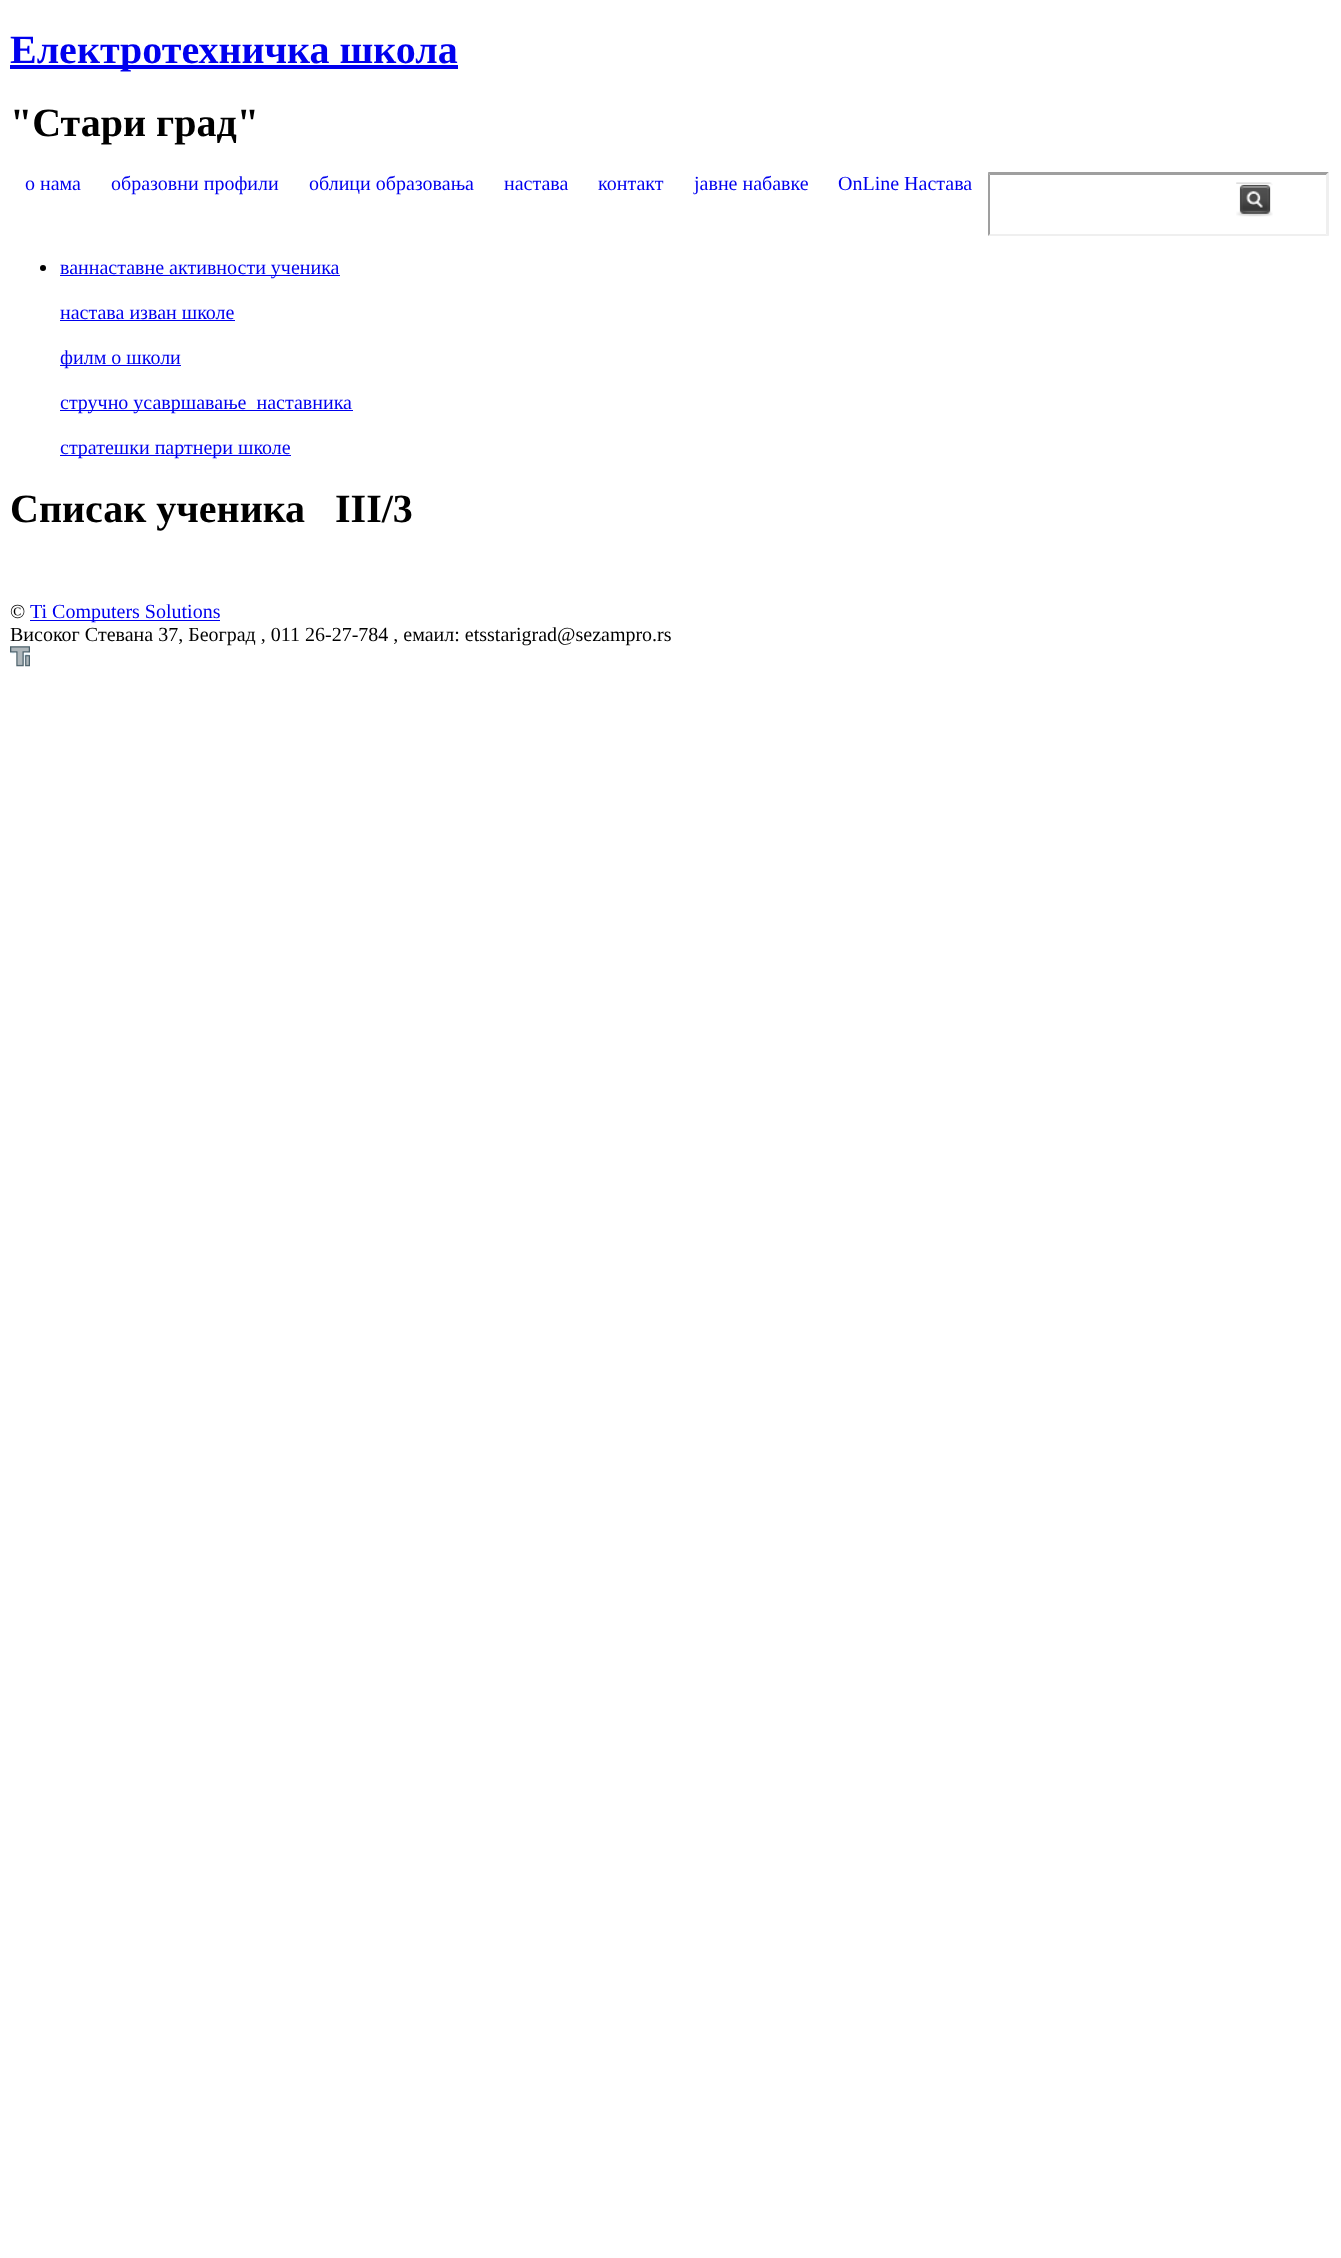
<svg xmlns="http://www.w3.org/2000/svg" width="1341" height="2258">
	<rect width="100%" height="100%" fill="#FFFFFF" />
	<rect x="10" y="65" width="448" height="4" fill="#0000EE" />
	<text x="10" y="63" font-family="Liberation Serif" font-size="40" font-weight="700" fill="#0000EE">Електротехничка школа</text>
	<text x="10" y="136" font-family="Liberation Serif" font-size="40" font-weight="700" fill="#000000">"Стари град"</text>
	<g font-family="Liberation Serif" font-size="20" fill="#0000EE">
		<text x="25" y="190">о нама</text>
		<text x="111" y="190">образовни профили</text>
		<text x="309" y="190">облици образовања</text>
		<text x="504" y="190">настава</text>
		<text x="598" y="190">контакт</text>
		<text x="694" y="190">јавне набавке</text>
		<text x="838" y="190">OnLine Настава</text>
	</g>
	<path d="M988 172H1329L1326 175H990Z" fill="#9F9F9F" />
	<path d="M1329 172V236L1326 234V175Z" fill="#EFEFEF" />
	<path d="M1329 236H988L990 234H1326Z" fill="#EFEFEF" />
	<path d="M988 236V172L990 175V234Z" fill="#9F9F9F" />
	<image x="1236" y="182" width="37" height="35" href="assets/img1.png" />
	<circle cx="43" cy="268" r="3" fill="#000000" />
	<rect x="60" y="275" width="280" height="1" fill="#0000EE" />
	<g font-family="Liberation Serif" font-size="20" fill="#0000EE">
		<text x="60" y="274">ваннаставне активности ученика</text>
		<text x="60" y="319">настава изван школе</text>
	</g>
	<rect x="60" y="320" width="175" height="1" fill="#0000EE" />
	<rect x="60" y="365" width="121" height="1" fill="#0000EE" />
	<text x="60" y="364" font-family="Liberation Serif" font-size="20" fill="#0000EE">филм о школи</text>
	<rect x="60" y="410" width="293" height="1" fill="#0000EE" />
	<text x="60" y="409" font-family="Liberation Serif" font-size="20" fill="#0000EE" xml:space="preserve">стручно усавршавање  наставника</text>
	<rect x="60" y="455" width="231" height="1" fill="#0000EE" />
	<text x="60" y="454" font-family="Liberation Serif" font-size="20" fill="#0000EE">стратешки партнери школе</text>
	<g font-family="Liberation Serif" font-size="40" font-weight="700" fill="#000000">
		<text x="10" y="522">Списак ученика</text>
		<text x="335" y="522">III/3</text>
	</g>
	<text x="10" y="618" font-family="Liberation Serif" font-size="20" fill="#000000">©</text>
	<rect x="30" y="620" width="190" height="1" fill="#0000EE" />
	<text x="30" y="618" font-family="Liberation Serif" font-size="20" fill="#0000EE">Ti Computers Solutions</text>
	<text x="10" y="641" font-family="Liberation Serif" font-size="20" fill="#000000">Високог Стевана 37, Београд , 011 26-27-784 , емаил: etsstarigrad@sezampro.rs</text>
	<image x="10" y="646" width="20" height="21" href="assets/img2.png" />
</svg>
